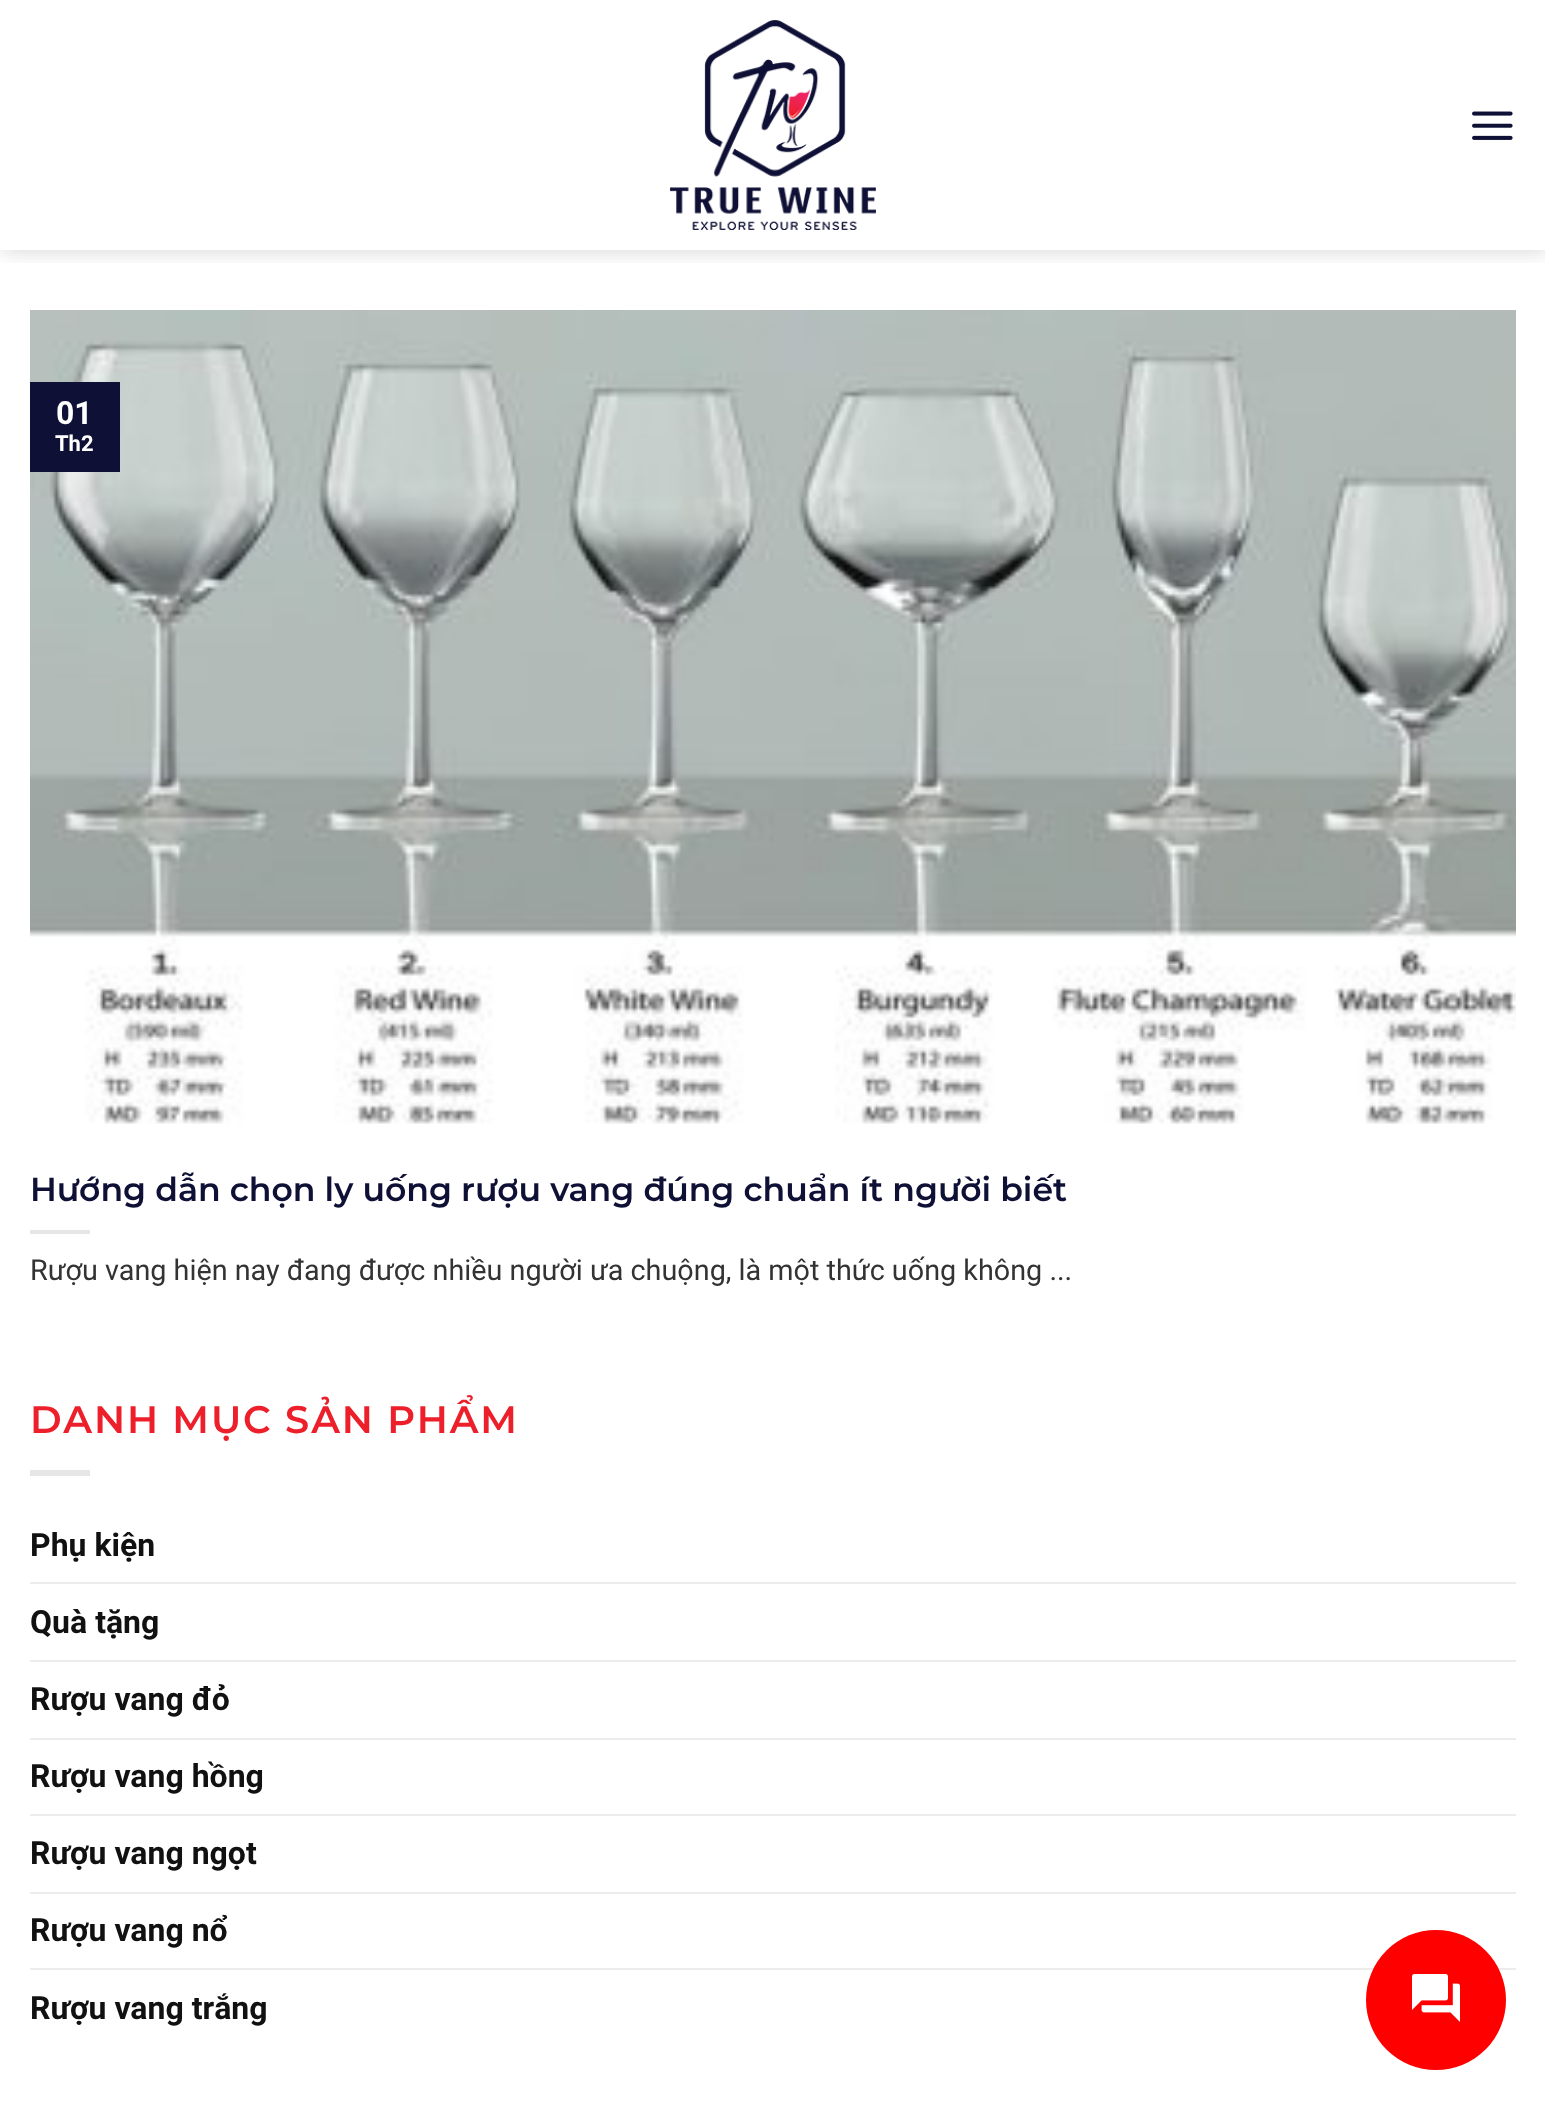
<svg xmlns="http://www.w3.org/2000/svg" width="1545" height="2109">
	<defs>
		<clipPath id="clip1"><rect x="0" y="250" width="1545" height="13" /></clipPath>
	</defs>
	<rect width="100%" height="100%" fill="#FFFFFF" />
	<g clip-path="url(#clip1)">
		<rect x="2" y="2" width="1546" height="250" fill="#000000" fill-opacity="0.15" filter="blur(10px)" />
	</g>
	<image x="670" y="20" width="206" height="210" href="assets/img1.png" />
	<image x="1472" y="111" width="41" height="29" href="assets/img2.png" />
	<image x="30" y="310" width="1486" height="814" href="assets/img3.png" />
	<rect x="30" y="382" width="90" height="90" fill="#0F1035" />
	<text x="56" y="424" font-family="Roboto" font-size="32" font-weight="700" fill="#FFFFFF">01</text>
	<text x="55" y="451" font-family="Roboto" font-size="22" font-weight="700" fill="#FFFFFF">Th2</text>
	<text x="30" y="1201" font-family="Montserrat" font-size="33.1" font-weight="100" fill="#0F1035">Hướng dẫn chọn ly uống rượu vang đúng chuẩn ít người biết</text>
	<rect x="30" y="1230" width="60" height="4" fill="#E6E6E6" />
	<text x="30" y="1280" font-family="Roboto" font-size="28.8" fill="#333333">Rượu vang hiện nay đang được nhiều người ưa chuộng, là một thức uống không ...</text>
	<text x="30" y="1433" font-family="Montserrat" font-size="38.4" font-weight="100" letter-spacing="1.9" fill="#EC1F2B">DANH MỤC SẢN PHẨM</text>
	<rect x="30" y="1470" width="60" height="6" fill="#E6E6E6" />
	<text x="30" y="1556" font-family="Roboto" font-size="32" font-weight="700" fill="#111111">Phụ kiện</text>
	<rect x="30" y="1582" width="1486" height="2" fill="#ECECEC" />
	<text x="30" y="1633" font-family="Roboto" font-size="32" font-weight="700" fill="#111111">Quà tặng</text>
	<rect x="30" y="1660" width="1486" height="2" fill="#ECECEC" />
	<text x="30" y="1710" font-family="Roboto" font-size="32" font-weight="700" fill="#111111">Rượu vang đỏ</text>
	<rect x="30" y="1738" width="1486" height="2" fill="#ECECEC" />
	<text x="30" y="1787" font-family="Roboto" font-size="32" font-weight="700" fill="#111111">Rượu vang hồng</text>
	<rect x="30" y="1814" width="1486" height="2" fill="#ECECEC" />
	<text x="30" y="1864" font-family="Roboto" font-size="32" font-weight="700" fill="#111111">Rượu vang ngọt</text>
	<rect x="30" y="1892" width="1486" height="2" fill="#ECECEC" />
	<text x="30" y="1941" font-family="Roboto" font-size="32" font-weight="700" fill="#111111">Rượu vang nổ</text>
	<rect x="30" y="1968" width="1486" height="2" fill="#ECECEC" />
	<text x="30" y="2019" font-family="Roboto" font-size="32" font-weight="700" fill="#111111">Rượu vang trắng</text>
	<circle cx="1436" cy="2000" r="70" fill="#FF0000" />
	<image x="1412" y="1974" width="48" height="48" href="assets/img4.png" />
</svg>
